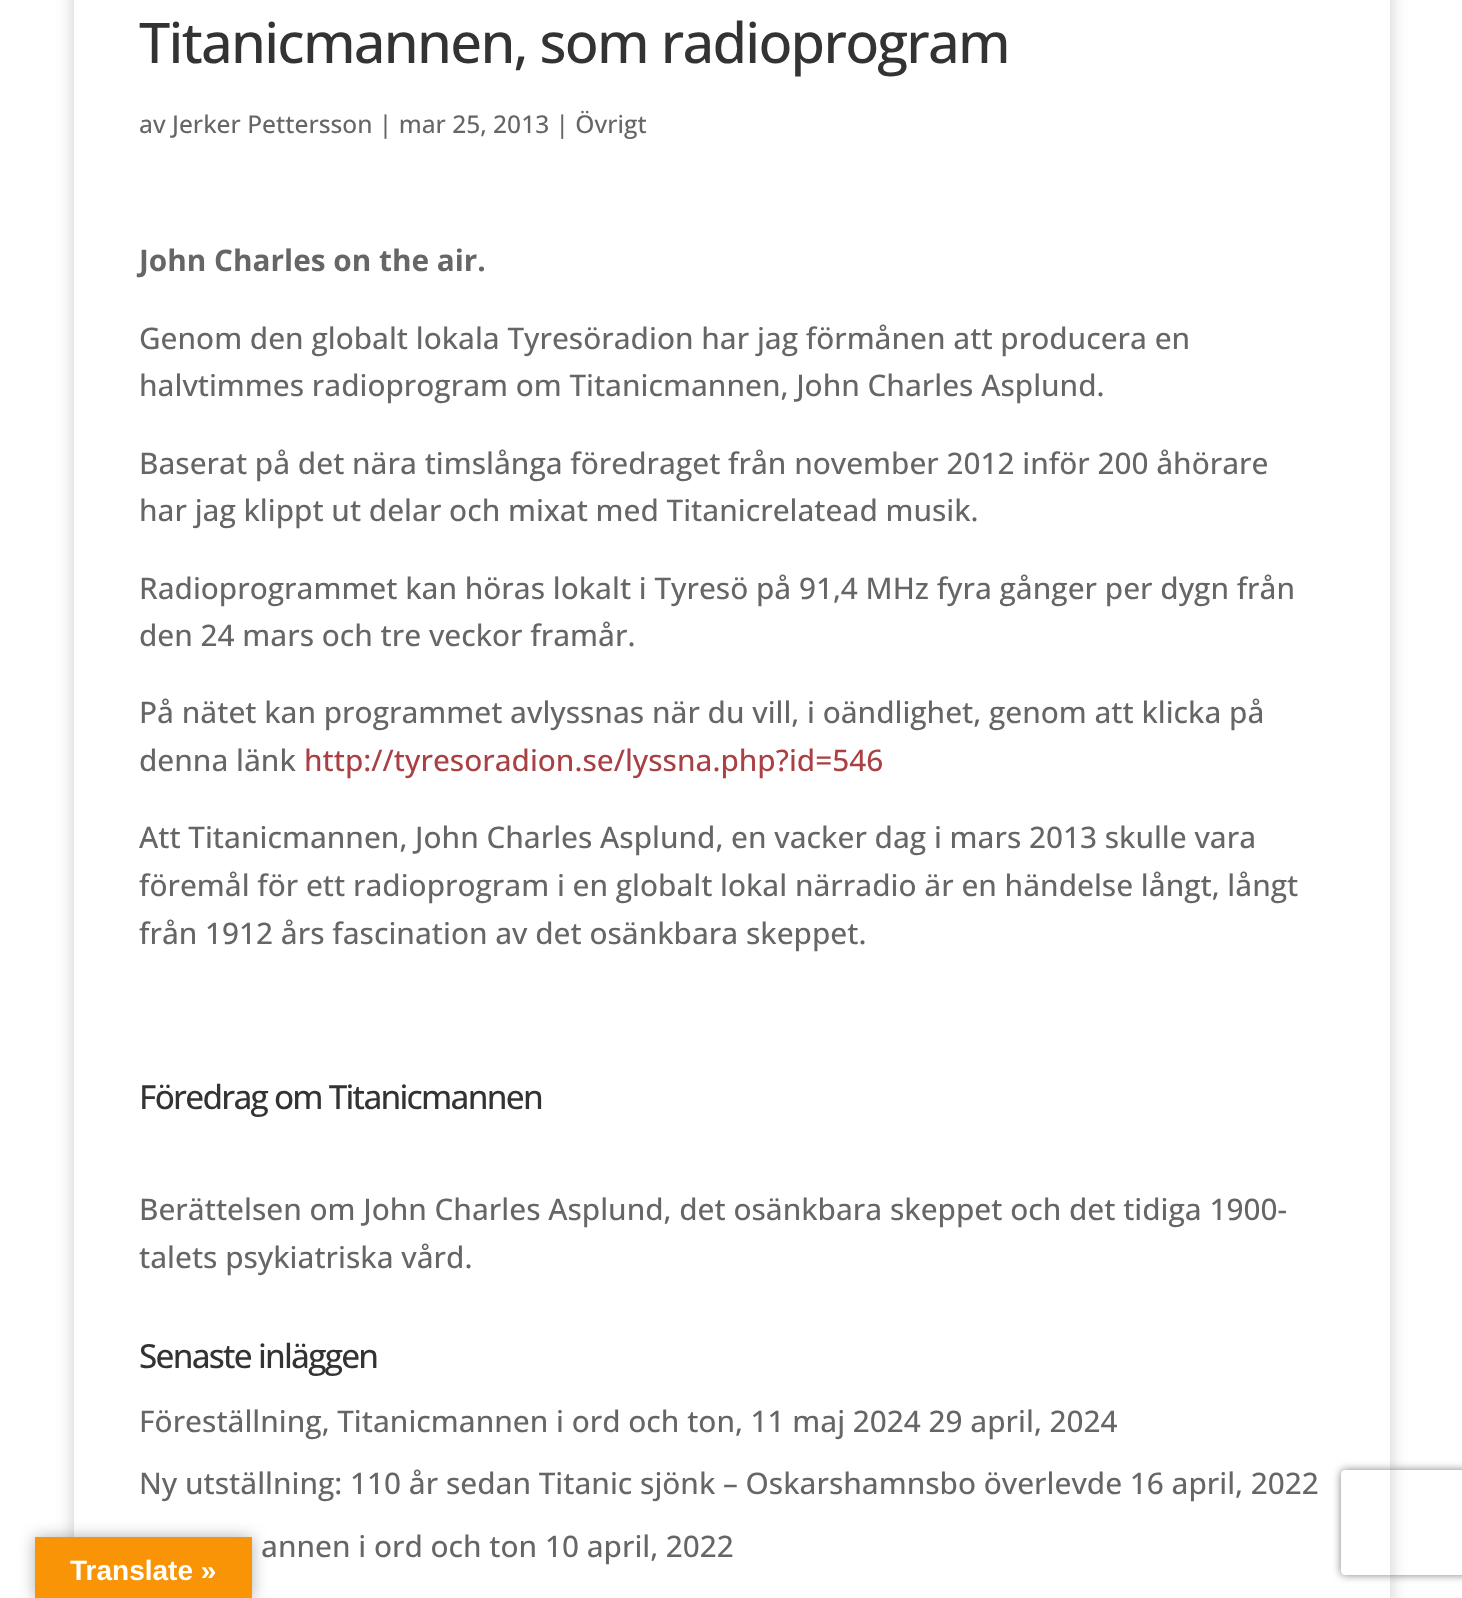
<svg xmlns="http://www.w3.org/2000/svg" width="1462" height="1598">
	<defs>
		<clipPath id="clip1"><path d="M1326 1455H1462V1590H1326ZM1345 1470H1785C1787 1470 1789 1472 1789 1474V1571C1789 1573 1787 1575 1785 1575H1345C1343 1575 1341 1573 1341 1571V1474C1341 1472 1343 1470 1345 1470Z" clip-rule="evenodd" /></clipPath>
	</defs>
	<rect width="100%" height="100%" fill="#FFFFFF" />
	<rect x="74" y="-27" width="1316" height="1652" fill="#000000" fill-opacity="0.2" filter="blur(9px)" />
	<rect x="74" y="0" width="1316" height="1598" fill="#FFFFFF" />
	<text x="139" y="63" font-family="Open Sans" font-size="56" font-weight="500" letter-spacing="-1.75" fill="#333333">Titanicmannen, som radioprogram</text>
	<text x="139" y="133" font-family="Open Sans" font-size="24.5" font-weight="500" fill="#666666">av Jerker Pettersson | mar 25, 2013 | Övrigt</text>
	<text x="139" y="271" font-family="Open Sans" font-size="29.75" font-weight="700" fill="#666666">John Charles on the air.</text>
	<g font-family="Open Sans" font-size="29.75" font-weight="500" fill="#666666">
		<text x="139" y="349">Genom den globalt lokala Tyresöradion har jag förmånen att producera en</text>
		<text x="139" y="396">halvtimmes radioprogram om Titanicmannen, John Charles Asplund.</text>
		<text x="139" y="474">Baserat på det nära timslånga föredraget från november 2012 inför 200 åhörare</text>
		<text x="139" y="521">har jag klippt ut delar och mixat med Titanicrelatead musik.</text>
		<text x="139" y="599">Radioprogrammet kan höras lokalt i Tyresö på 91,4 MHz fyra gånger per dygn från</text>
		<text x="139" y="646">den 24 mars och tre veckor framår.</text>
		<text x="139" y="723">På nätet kan programmet avlyssnas när du vill, i oändlighet, genom att klicka på</text>
		<text x="139" y="771">denna länk</text>
	</g>
	<text x="304" y="771" font-family="Open Sans" font-size="29.75" font-weight="500" fill="#A94044">http://tyresoradion.se/lyssna.php?id=546</text>
	<g font-family="Open Sans" font-size="29.75" font-weight="500" fill="#666666">
		<text x="139" y="848">Att Titanicmannen, John Charles Asplund, en vacker dag i mars 2013 skulle vara</text>
		<text x="139" y="896">föremål för ett radioprogram i en globalt lokal närradio är en händelse långt, långt</text>
		<text x="139" y="944">från 1912 års fascination av det osänkbara skeppet.</text>
	</g>
	<text x="139" y="1109" font-family="Open Sans" font-size="33.25" font-weight="500" letter-spacing="-1.75" fill="#333333">Föredrag om Titanicmannen</text>
	<g font-family="Open Sans" font-size="29.75" font-weight="500" fill="#666666">
		<text x="139" y="1220">Berättelsen om John Charles Asplund, det osänkbara skeppet och det tidiga 1900-</text>
		<text x="139" y="1268">talets psykiatriska vård.</text>
	</g>
	<text x="139" y="1368" font-family="Open Sans" font-size="33.25" font-weight="500" letter-spacing="-1.75" fill="#333333">Senaste inläggen</text>
	<g font-family="Open Sans" font-size="29.75" font-weight="500" fill="#666666">
		<text x="139" y="1432">Föreställning, Titanicmannen i ord och ton, 11 maj 2024 29 april, 2024</text>
		<text x="139" y="1494">Ny utställning: 110 år sedan Titanic sjönk – Oskarshamnsbo överlevde 16 april, 2022</text>
		<text x="261" y="1557">annen i ord och ton 10 april, 2022</text>
	</g>
	<g clip-path="url(#clip1)">
		<rect x="1341" y="1470" width="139" height="105" rx="4" fill="#808080" filter="blur(4.5px)" />
	</g>
	<rect x="35" y="1537" width="217" height="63" fill="#000000" fill-opacity="0.3" filter="blur(8px)" />
	<rect x="35" y="1537" width="217" height="61" fill="#F89406" />
	<text x="70" y="1580" font-family="Liberation Sans" font-size="28" font-weight="700" fill="#FFFFFF">Translate »</text>
</svg>
